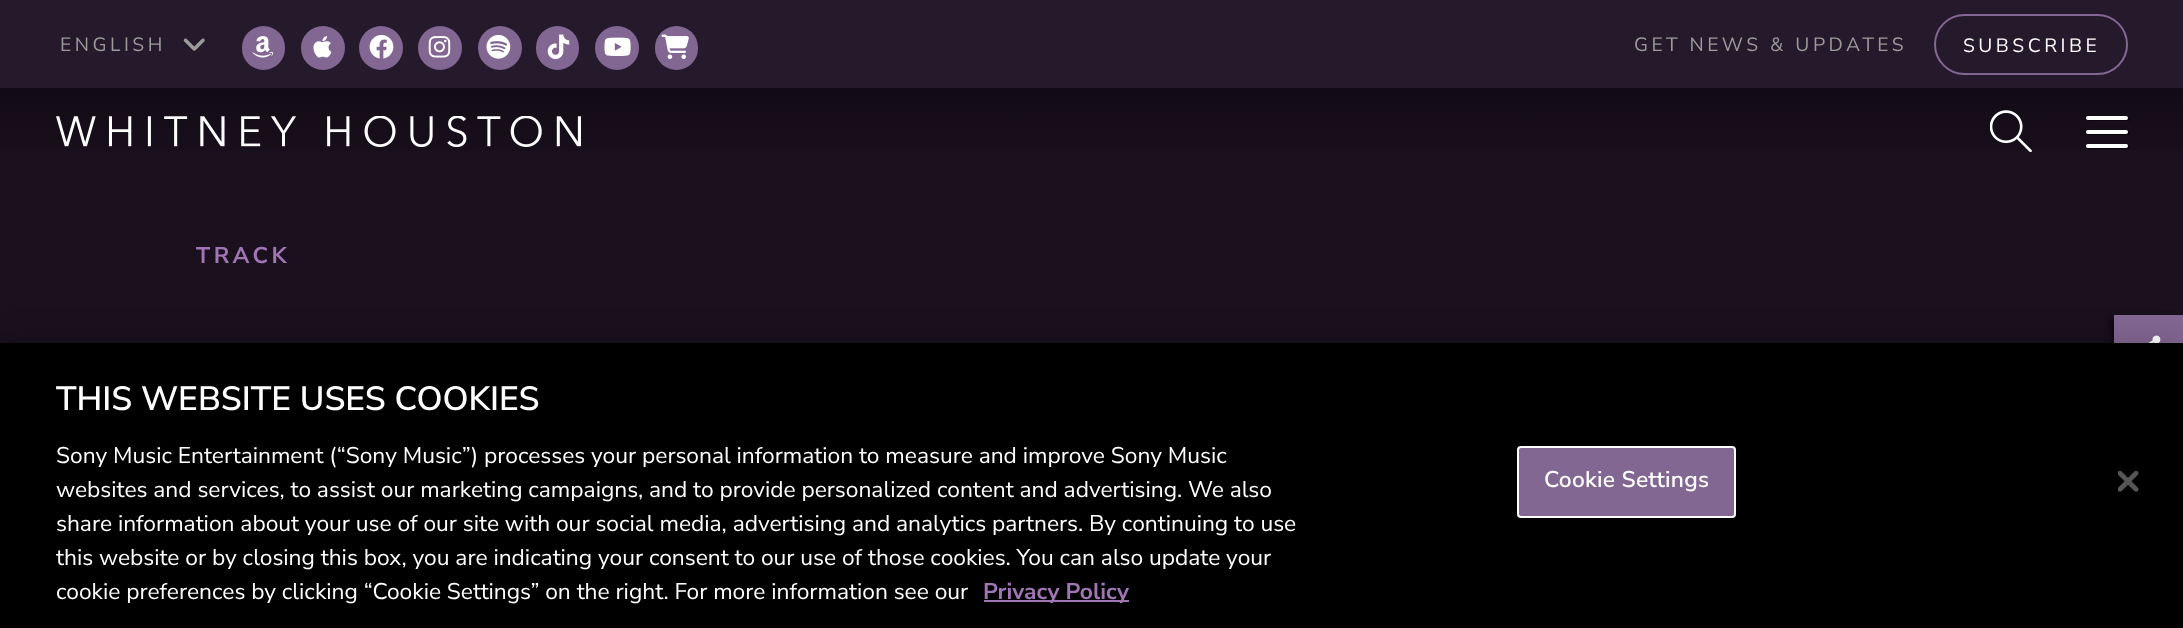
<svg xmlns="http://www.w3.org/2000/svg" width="2183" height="628">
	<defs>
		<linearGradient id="g1" gradientUnits="userSpaceOnUse" x1="1092" y1="87" x2="1092" y2="175"><stop offset="0" stop-color="#120B15" /><stop offset="1" stop-color="#1A101E" /></linearGradient>
	</defs>
	<rect width="100%" height="100%" fill="#1A101E" />
	<rect x="0" y="0" width="2183" height="88" fill="#251A2C" />
	<text x="60" y="51" font-family="Nunito Sans" font-size="19.25" letter-spacing="3.5" fill="#9B9B9B">ENGLISH</text>
	<image x="183" y="38" width="22" height="13" href="assets/img1.png" />
	<rect x="242" y="26" width="43" height="44" rx="21.5" fill="#836793" />
	<image x="252" y="36" width="22" height="22" href="assets/img2.png" />
	<circle cx="323" cy="48" r="22" fill="#836793" />
	<image x="313" y="36" width="19" height="22" href="assets/img3.png" />
	<circle cx="381" cy="48" r="22" fill="#836793" />
	<image x="369" y="34" width="25" height="25" href="assets/img4.png" />
	<circle cx="440" cy="48" r="22" fill="#836793" />
	<image x="428" y="36" width="23" height="22" href="assets/img5.png" />
	<circle cx="500" cy="48" r="22" fill="#836793" />
	<image x="486" y="34" width="25" height="25" href="assets/img6.png" />
	<rect x="536" y="26" width="43" height="44" rx="21.5" fill="#836793" />
	<image x="547" y="34" width="23" height="26" href="assets/img7.png" />
	<circle cx="617" cy="48" r="22" fill="#836793" />
	<image x="604" y="37" width="27" height="19" href="assets/img8.png" />
	<rect x="655" y="26" width="43" height="44" rx="21.5" fill="#836793" />
	<image x="661" y="34" width="28" height="25" href="assets/img9.png" />
	<text x="1634" y="51" font-family="Nunito Sans" font-size="19.25" letter-spacing="3.5" fill="#9B9B9B">GET NEWS &amp; UPDATES</text>
	<rect x="1935" y="15" width="192" height="59" rx="29.5" fill="none" stroke="#836793" stroke-width="2" />
	<text x="1963" y="52" font-family="Nunito Sans" font-size="19.25" letter-spacing="3.5" fill="#FFFFFF">SUBSCRIBE</text>
	<rect x="0" y="88" width="2183" height="63" fill="url(#g1)" />
	<image x="56" y="116" width="525" height="31" href="assets/img10.png" />
	<image x="1990" y="110" width="42" height="42" href="assets/img11.png" />
	<path d="M2088 119L2089 121H2129C2131 120 2130 117 2128 117C2128 120 2123 119 2120 119Z" fill="#0B070C" />
	<rect x="2086" y="116" width="42" height="4" rx="2" fill="#FFFFFF" />
	<path d="M2088 133L2089 135H2129C2131 134 2130 131 2128 131C2128 134 2123 133 2120 133Z" fill="#0B070D" />
	<path d="M2088 133L2089 135H2129C2131 134 2130 131 2128 131C2128 134 2123 133 2120 133Z" fill="#000000" fill-opacity="0.5" />
	<rect x="2086" y="130" width="42" height="4" rx="2" fill="#FFFFFF" />
	<path d="M2088 147L2089 149H2129C2131 148 2130 145 2128 145C2128 148 2123 147 2120 147Z" fill="#0C070E" />
	<rect x="2086" y="144" width="42" height="4" rx="2" fill="#FFFFFF" />
	<text x="196" y="263" font-family="Nunito Sans" font-size="22.75" font-weight="700" letter-spacing="3.5" fill="#A075B4">TRACK</text>
	<rect x="2111" y="319" width="70" height="70" fill="#000000" fill-opacity="0.5" filter="blur(3.5px)" />
	<rect x="2114" y="315" width="69" height="28" fill="#836793" />
	<image x="2148" y="335" width="13" height="8" href="assets/img12.png" />
	<rect x="0" y="343" width="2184" height="285" fill="#000000" fill-opacity="0.2" filter="blur(16px)" />
	<rect x="0" y="343" width="2183" height="285" fill="#000000" />
	<text x="56" y="410" font-family="Nunito Sans" font-size="33.6" font-weight="600" fill="#FFFFFF">THIS WEBSITE USES COOKIES</text>
	<g font-family="Nunito Sans" font-size="22.75" fill="#FFFFFF">
		<text x="56" y="463">Sony Music Entertainment (“Sony Music”) processes your personal information to measure and improve Sony Music</text>
		<text x="56" y="497">websites and services, to assist our marketing campaigns, and to provide personalized content and advertising. We also</text>
		<text x="56" y="531">share information about your use of our site with our social media, advertising and analytics partners. By continuing to use</text>
		<text x="56" y="565">this website or by closing this box, you are indicating your consent to our use of those cookies. You can also update your</text>
		<text x="56" y="599">cookie preferences by clicking “Cookie Settings” on the right. For more information see our</text>
	</g>
	<rect x="984" y="600" width="145" height="2" fill="#A075B4" />
	<text x="983" y="599" font-family="Nunito Sans" font-size="22.75" font-weight="700" fill="#A075B4">Privacy Policy</text>
	<rect x="1518" y="447" width="217" height="70" rx="3" fill="#836793" stroke="#FFFFFF" stroke-width="2" />
	<text x="1544" y="487" font-family="Nunito Sans" font-size="22.75" font-weight="600" letter-spacing="0.25" fill="#FFFFFF">Cookie Settings</text>
	<image x="2118" y="471" width="21" height="21" href="assets/img13.png" />
</svg>
